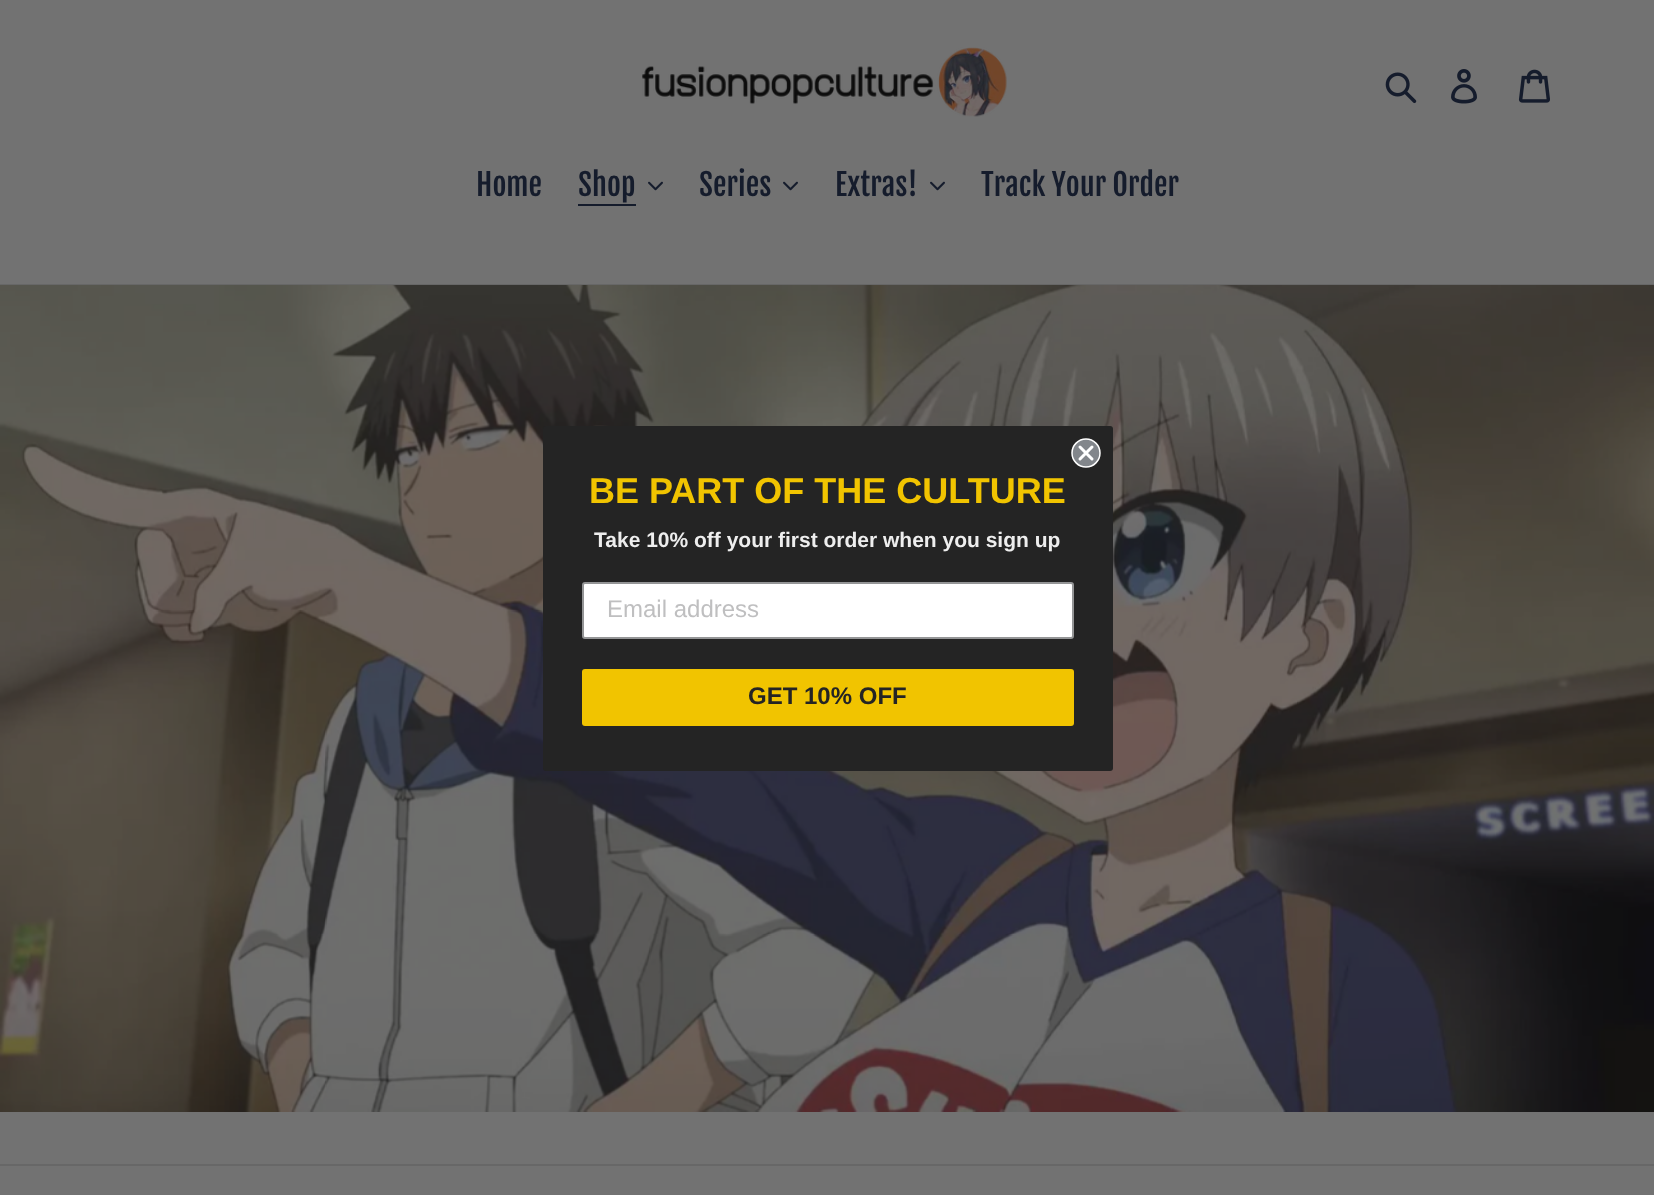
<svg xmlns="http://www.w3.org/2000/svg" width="1654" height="1195">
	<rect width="100%" height="100%" fill="#727272" />
	<image x="642" y="47" width="365" height="70" href="assets/img1.png" />
	<image x="1385" y="72" width="32" height="32" href="assets/img2.png" />
	<image x="1451" y="69" width="26" height="35" href="assets/img3.png" />
	<image x="1518" y="69" width="32" height="34" href="assets/img4.png" />
	<rect x="0" y="284" width="1654" height="1" fill="#676767" />
	<g font-family="Fjalla One" font-size="30" fill="#151C2C">
		<text x="476" y="196">Home</text>
		<text x="578" y="196">Shop</text>
	</g>
	<rect x="578" y="204" width="58" height="2" fill="#151C2C" />
	<image x="648" y="181" width="15" height="10" href="assets/img5.png" />
	<text x="699" y="196" font-family="Fjalla One" font-size="30" fill="#151C2C">Series</text>
	<image x="783" y="181" width="15" height="10" href="assets/img5.png" />
	<text x="835" y="196" font-family="Fjalla One" font-size="30" fill="#151C2C">Extras!</text>
	<image x="930" y="181" width="15" height="10" href="assets/img5.png" />
	<text x="981" y="196" font-family="Fjalla One" font-size="30" fill="#151C2C">Track Your Order</text>
	<image x="0" y="285" width="1654" height="827" href="assets/img6.png" />
	<rect x="0" y="1164" width="1654" height="2" fill="#676767" />
	<rect x="543" y="426" width="570" height="345" rx="3" fill="#242424" />
	<circle cx="1086" cy="453" r="14" fill="#82868B" stroke="#FFFFFF" stroke-width="1.5" />
	<path d="M1080 447L1092 459M1080 459L1092 447Z" fill="none" stroke="#FFFFFF" stroke-width="3" stroke-linecap="round" stroke-linejoin="round" />
	<text x="589" y="503" font-family="Liberation Sans" font-size="36" font-weight="700" fill="#F1C400">BE PART OF THE CULTURE</text>
	<text x="594" y="547" font-family="Liberation Sans" font-size="21" font-weight="700" fill="#EEEEEE">Take 10% off your first order when you sign up</text>
	<rect x="583" y="583" width="490" height="55" rx="2" fill="#FFFFFF" stroke="#949596" stroke-width="2" />
	<text x="607" y="617" font-family="Liberation Sans" font-size="24" fill="#BFBFC0">Email address</text>
	<rect x="582" y="669" width="492" height="57" rx="3" fill="#F1C400" />
	<text x="748" y="704" font-family="Liberation Sans" font-size="24" font-weight="700" fill="#242424">GET 10% OFF</text>
</svg>
